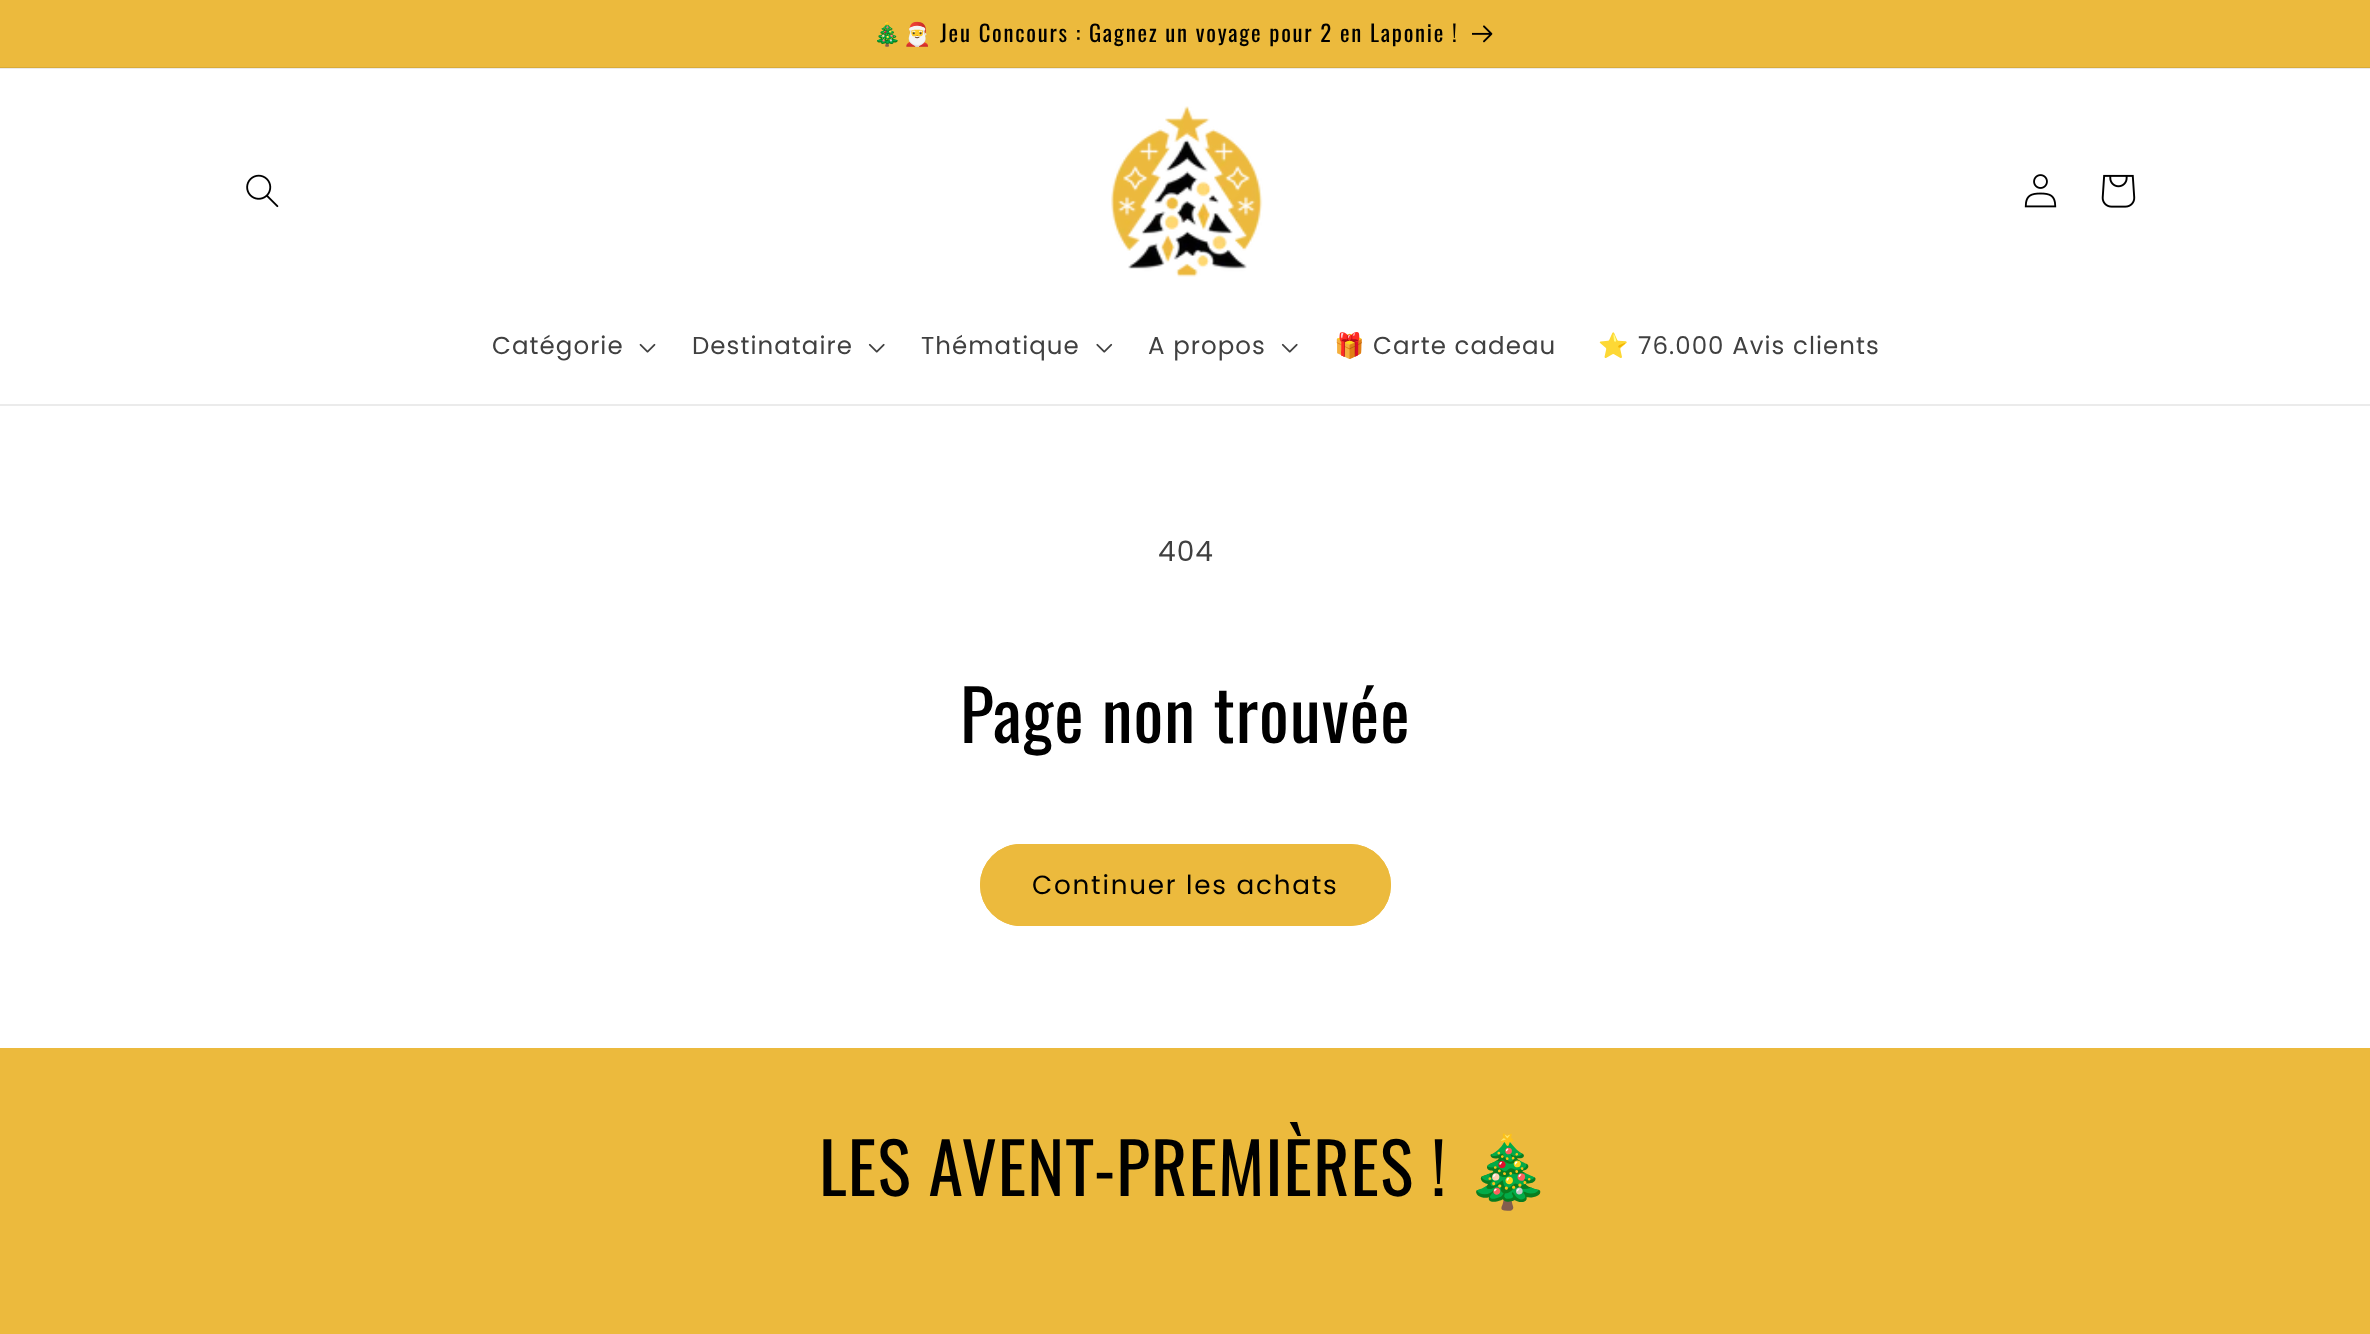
<svg xmlns="http://www.w3.org/2000/svg" width="2370" height="1334">
	<rect width="100%" height="100%" fill="#FFFFFF" />
	<rect x="0" y="68" width="2370" height="1" fill="#EBEBEB" />
	<rect x="0" y="0" width="2370" height="67" fill="#ECBA3D" />
	<rect x="0" y="67" width="2370" height="1" fill="#D9AB38" />
	<text x="873" y="42" font-family="Noto Color Emoji" font-size="22.75" letter-spacing="1.75" fill="#000000">🎄🎅</text>
	<text x="940" y="42" font-family="Oswald" font-size="22.75" letter-spacing="1.75" fill="#000000">Jeu Concours : Gagnez un voyage pour 2 en Laponie !</text>
	<image x="1472" y="25" width="21" height="18" href="assets/img1.png" />
	<rect x="0" y="404" width="2370" height="2" fill="#EBEBEB" />
	<image x="246" y="174" width="33" height="34" href="assets/img2.png" />
	<image x="1111" y="106" width="152" height="171" href="assets/img3.png" />
	<image x="2024" y="174" width="33" height="34" href="assets/img4.png" />
	<image x="2101" y="174" width="35" height="34" href="assets/img5.png" />
	<text x="492" y="354" font-family="Poppins" font-size="24.5" letter-spacing="1.05" fill="#404040">Catégorie</text>
	<image x="639" y="343" width="17" height="10" href="assets/img6.png" />
	<text x="692" y="354" font-family="Poppins" font-size="24.5" letter-spacing="1.05" fill="#404040">Destinataire</text>
	<image x="868" y="343" width="17" height="10" href="assets/img7.png" />
	<text x="921" y="354" font-family="Poppins" font-size="24.5" letter-spacing="1.05" fill="#404040">Thématique</text>
	<image x="1096" y="343" width="17" height="10" href="assets/img8.png" />
	<text x="1148" y="354" font-family="Poppins" font-size="24.5" letter-spacing="1.05" fill="#404040">A propos</text>
	<image x="1281" y="343" width="17" height="10" href="assets/img7.png" />
	<text x="1334" y="354" font-family="Noto Color Emoji" font-size="24.5" letter-spacing="1.05" fill="#404040">🎁</text>
	<text x="1373" y="354" font-family="Poppins" font-size="24.5" letter-spacing="1.05" fill="#404040">Carte cadeau</text>
	<text x="1598" y="354" font-family="Noto Color Emoji" font-size="24.5" letter-spacing="1.05" fill="#404040">⭐️</text>
	<text x="1638" y="354" font-family="Poppins" font-size="24.5" letter-spacing="1.05" fill="#404040">76.000 Avis clients</text>
	<text x="1158" y="561" font-family="Poppins" font-size="28" letter-spacing="1.05" fill="#404040">404</text>
	<text x="960" y="743" font-family="Oswald" font-size="70" letter-spacing="1.05" fill="#000000">Page non trouvée</text>
	<rect x="980" y="844" width="411" height="82" rx="41" fill="#ECBA3D" />
	<rect x="981" y="845" width="409" height="80" rx="40" fill="none" stroke="#ECBA3D" stroke-width="2" />
	<text x="1032" y="894" font-family="Poppins" font-size="26.25" letter-spacing="1.75" fill="#000000">Continuer les achats</text>
	<rect x="0" y="1048" width="2370" height="286" fill="#ECBA3D" />
	<text x="819" y="1196" font-family="Oswald" font-size="70" letter-spacing="1.05" fill="#000000">LES AVENT-PREMIÈRES !</text>
	<text x="1464" y="1196" font-family="Noto Color Emoji" font-size="70" letter-spacing="1.05" fill="#000000">🎄</text>
</svg>
